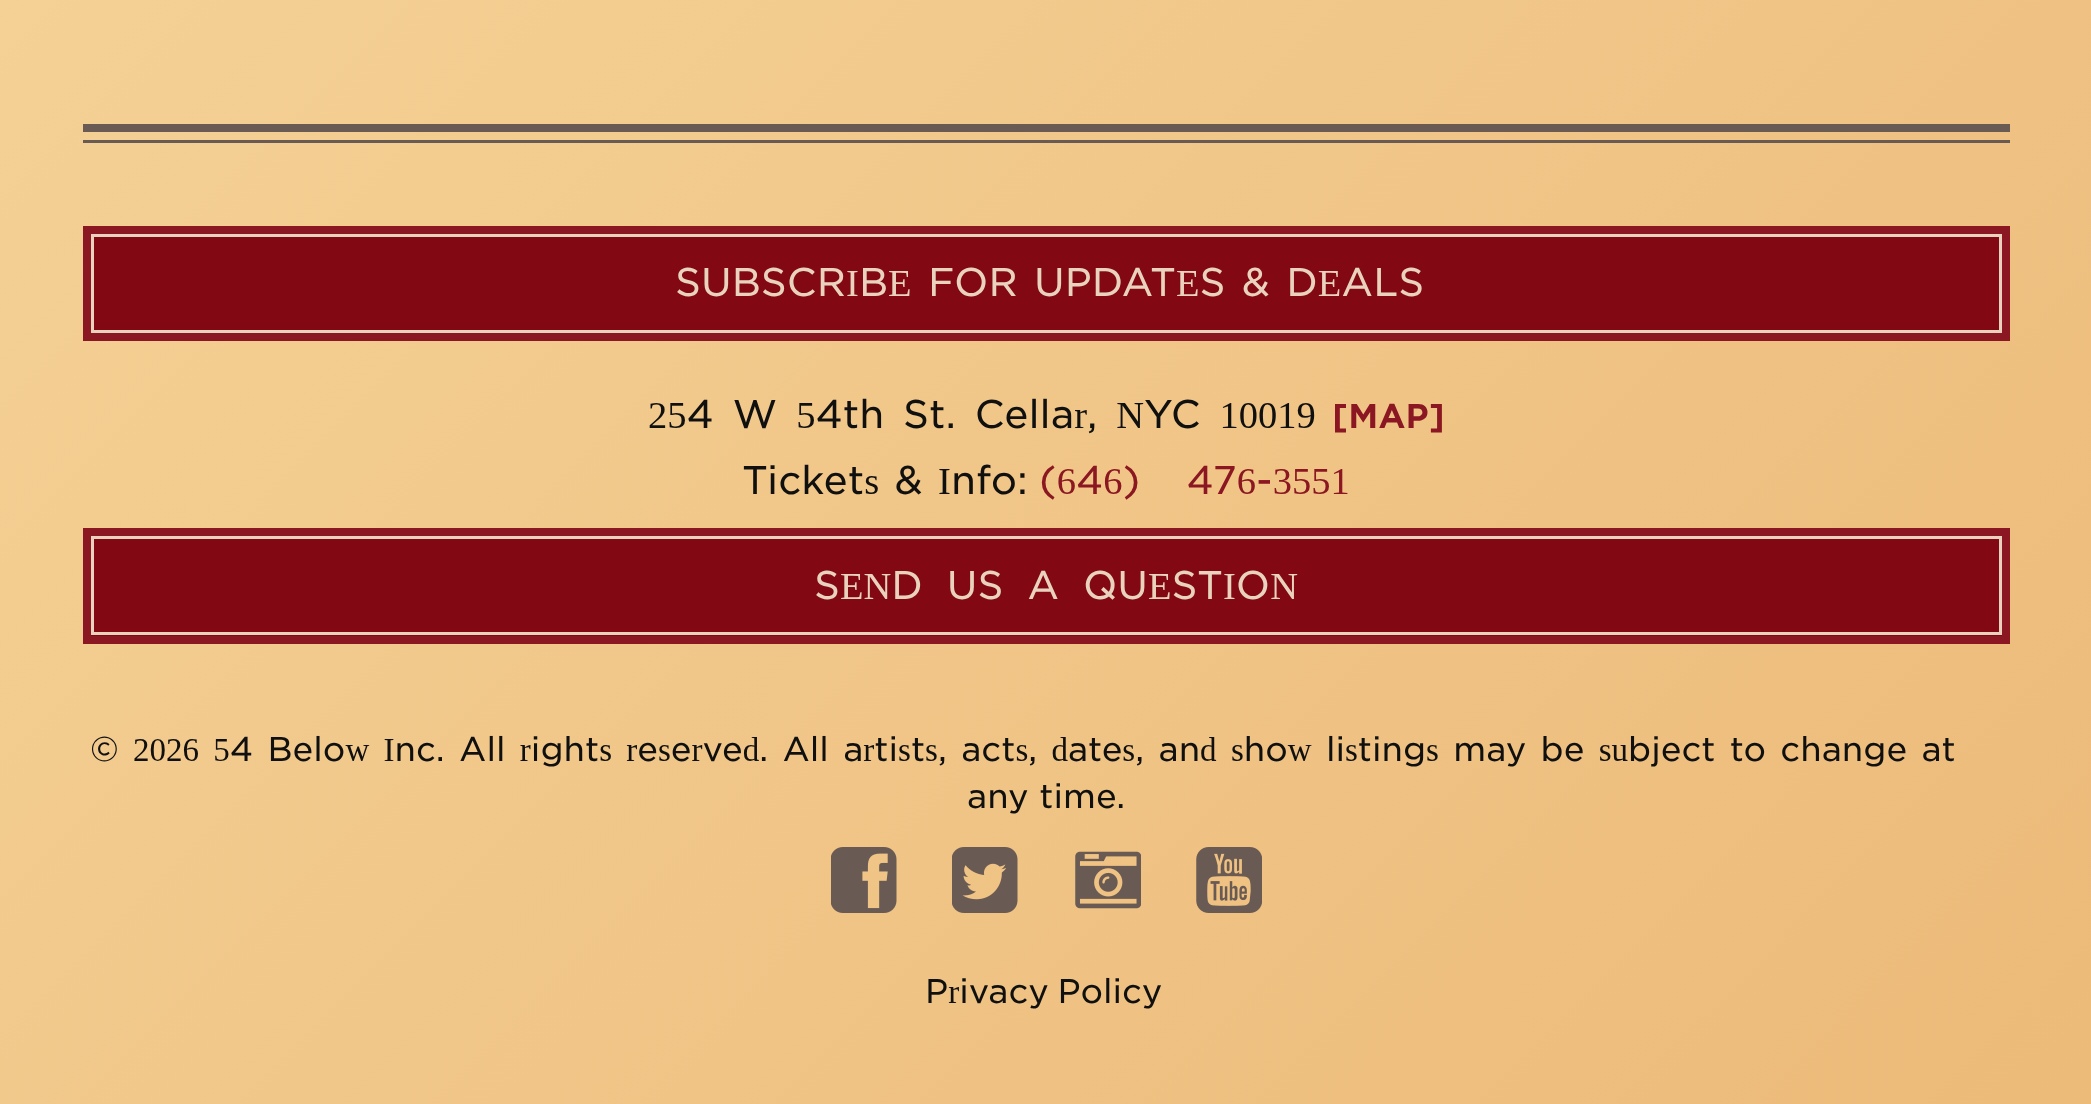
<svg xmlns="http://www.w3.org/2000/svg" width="2091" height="1104">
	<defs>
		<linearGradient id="g1" gradientUnits="userSpaceOnUse" x1="-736" y1="-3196" x2="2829" y2="369"><stop offset="0" stop-color="#FFEDB8" /><stop offset="1" stop-color="#ECBA79" /></linearGradient>
	</defs>
	<rect width="100%" height="100%" fill="#FFFFFF" />
	<rect x="0" y="0" width="2091" height="1104" fill="url(#g1)" />
	<rect x="83" y="124" width="1927" height="8" fill="#695A53" />
	<rect x="83" y="140" width="1927" height="3" fill="#695A53" />
	<rect x="92.5" y="235.5" width="1908" height="96" fill="#820813" stroke="#E9D3BE" stroke-width="3" />
	<rect x="87" y="230" width="1919" height="107" fill="none" stroke="#8A1722" stroke-width="8" />
	<text x="675" y="296" word-spacing="4" font-family="'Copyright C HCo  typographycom'" font-size="38.5" font-weight="300" fill="#E9D3BE">SUBSCRIBE FOR UPDATES &amp; DEALS</text>
	<text x="648" y="428" word-spacing="6.5" font-family="'Copyright C HCo  typographycom'" font-size="38.5" font-weight="300" fill="#101010">254 W 54th St. Cellar, NYC 10019</text>
	<text x="1332" y="428" font-family="'Copyright C HCo  typographycom'" font-size="33" fill="#8A1722">[MAP]</text>
	<text x="742" y="494" word-spacing="3" font-family="'Copyright C HCo  typographycom'" font-size="38.5" font-weight="300" fill="#101010">Tickets &amp; Info:</text>
	<text x="1039" y="494" word-spacing="34" font-family="'Copyright C HCo  typographycom'" font-size="38.5" font-weight="300" fill="#8A1722">(646) 476-3551</text>
	<rect x="91" y="539" width="1911" height="97" fill="#820813" />
	<rect x="92.5" y="537.5" width="1908" height="96" fill="none" stroke="#E9D3BE" stroke-width="3" />
	<rect x="87" y="532" width="1919" height="108" fill="none" stroke="#8A1722" stroke-width="8" />
	<text x="814" y="599" word-spacing="11.5" font-family="'Copyright C HCo  typographycom'" font-size="38.5" font-weight="300" fill="#E9D3BE">SEND US A QUESTION</text>
	<g font-family="'Copyright C HCo  typographycom'" font-size="33" font-weight="300" fill="#101010">
		<text x="90" y="761" word-spacing="3.75">© 2026 54 Below Inc. All rights reserved. All artists, acts, dates, and show listings may be subject to change at</text>
		<text x="967" y="808">any time.</text>
	</g>
	<image x="831" y="847" width="66" height="66" href="assets/img1.png" />
	<image x="952" y="847" width="66" height="66" href="assets/img2.png" />
	<image x="1075" y="851" width="66" height="58" href="assets/img3.png" />
	<image x="1196" y="847" width="66" height="66" href="assets/img4.png" />
	<text x="925" y="1003" word-spacing="-2" font-family="'Copyright C HCo  typographycom'" font-size="33" font-weight="300" fill="#101010">Privacy Policy</text>
</svg>
